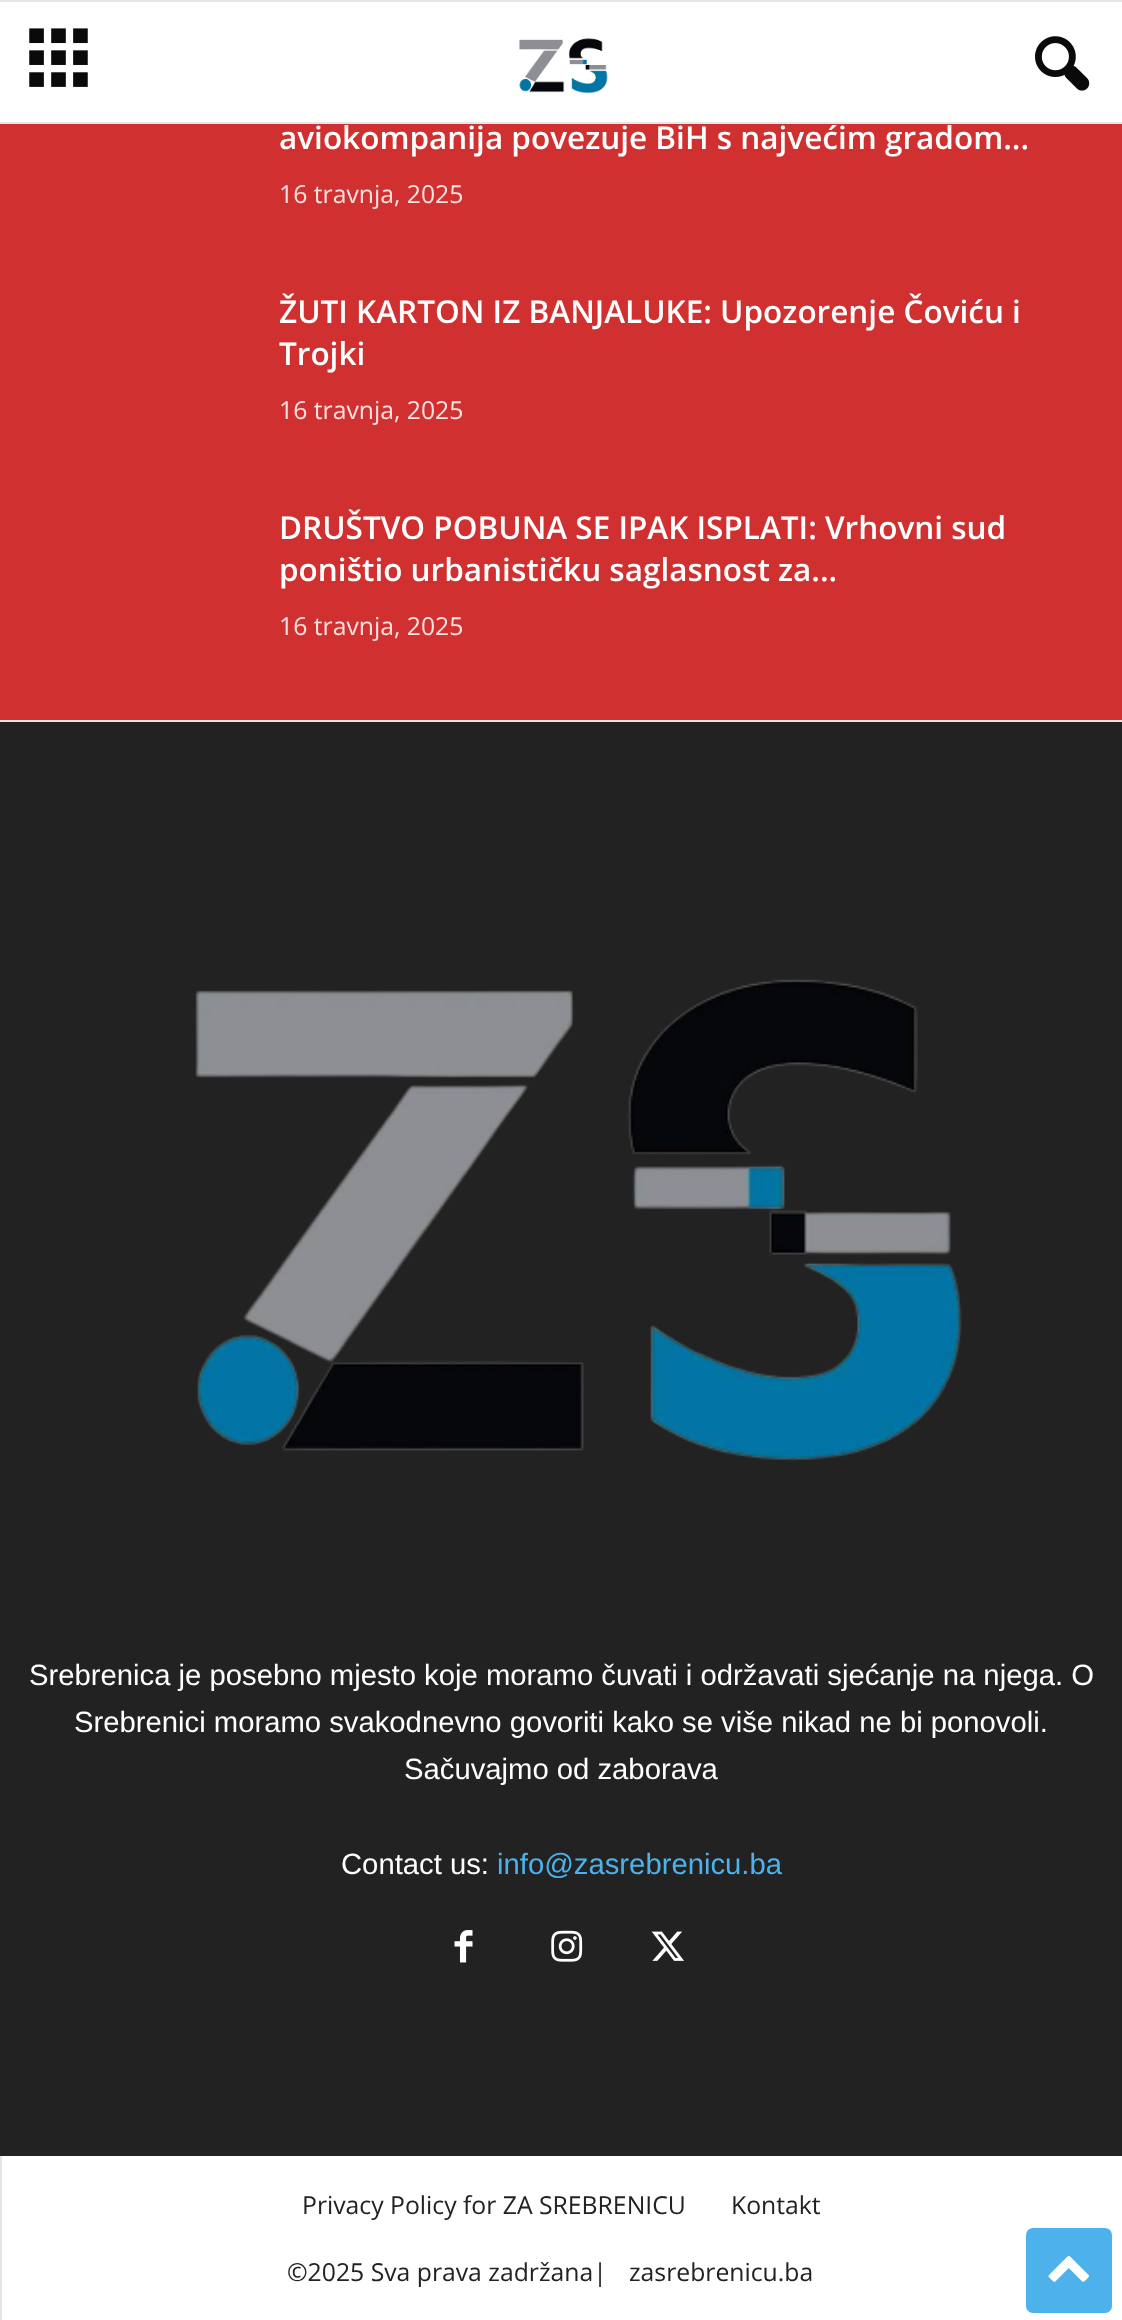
<svg xmlns="http://www.w3.org/2000/svg" width="1122" height="2320">
	<rect width="100%" height="100%" fill="#222222" />
	<rect x="0" y="2" width="1122" height="120" fill="#FFFFFF" />
	<rect x="0" y="0" width="1122" height="2" fill="#E6E6E6" />
	<rect x="0" y="122" width="1122" height="2" fill="#E6E6E6" />
	<image x="29" y="28" width="59" height="59" href="assets/img1.png" />
	<image x="519" y="38" width="89" height="56" href="assets/img2.png" />
	<image x="1035" y="36" width="55" height="55" href="assets/img3.png" />
	<rect x="0" y="720" width="1122" height="2" fill="#E6E6E6" />
	<rect x="0" y="124" width="1122" height="596" fill="#D13030" />
	<text x="279" y="149" font-family="Open Sans" font-size="31.5" font-weight="600" fill="#FFFFFF">aviokompanija povezuje BiH s najvećim gradom...</text>
	<text x="279" y="203" font-family="Open Sans" font-size="24.75" fill="#FFE3E3">16 travnja, 2025</text>
	<g font-family="Open Sans" font-size="31.5" font-weight="600" fill="#FFFFFF">
		<text x="279" y="323">ŽUTI KARTON IZ BANJALUKE: Upozorenje Čoviću i</text>
		<text x="279" y="365">Trojki</text>
	</g>
	<text x="279" y="419" font-family="Open Sans" font-size="24.75" fill="#FFE3E3">16 travnja, 2025</text>
	<g font-family="Open Sans" font-size="31.5" font-weight="600" fill="#FFFFFF">
		<text x="279" y="539">DRUŠTVO POBUNA SE IPAK ISPLATI: Vrhovni sud</text>
		<text x="279" y="581">poništio urbanističku saglasnost za...</text>
	</g>
	<text x="279" y="635" font-family="Open Sans" font-size="24.75" fill="#FFE3E3">16 travnja, 2025</text>
	<image x="195" y="979" width="767" height="482" href="assets/img4.png" />
	<g font-family="Liberation Sans" font-size="29.25" fill="#FFFFFF">
		<text x="29" y="1685">Srebrenica je posebno mjesto koje moramo čuvati i održavati sjećanje na njega. O</text>
		<text x="74" y="1732">Srebrenici moramo svakodnevno govoriti kako se više nikad ne bi ponovoli.</text>
		<text x="404" y="1779">Sačuvajmo od zaborava</text>
		<text x="341" y="1874">Contact us:</text>
	</g>
	<text x="497" y="1874" font-family="Liberation Sans" font-size="29.25" fill="#4DB2EC">info@zasrebrenicu.ba</text>
	<image x="454" y="1930" width="19" height="33" href="assets/img5.png" />
	<image x="551" y="1930" width="32" height="32" href="assets/img6.png" />
	<image x="651" y="1931" width="33" height="30" href="assets/img7.png" />
	<rect x="2" y="2156" width="1120" height="164" fill="#FFFFFF" />
	<rect x="0" y="2156" width="2" height="164" fill="#E6E6E6" />
	<g font-family="Open Sans" font-size="24.75" fill="#222222">
		<text x="302" y="2214">Privacy Policy for ZA SREBRENICU</text>
		<text x="731" y="2214">Kontakt</text>
		<text x="287" y="2281">©2025 Sva prava zadržana|</text>
		<text x="629" y="2281">zasrebrenicu.ba</text>
	</g>
	<rect x="1026" y="2228" width="86" height="85" rx="7" fill="#4DB2EC" />
	<image x="1048" y="2255" width="41" height="27" href="assets/img8.png" />
</svg>
